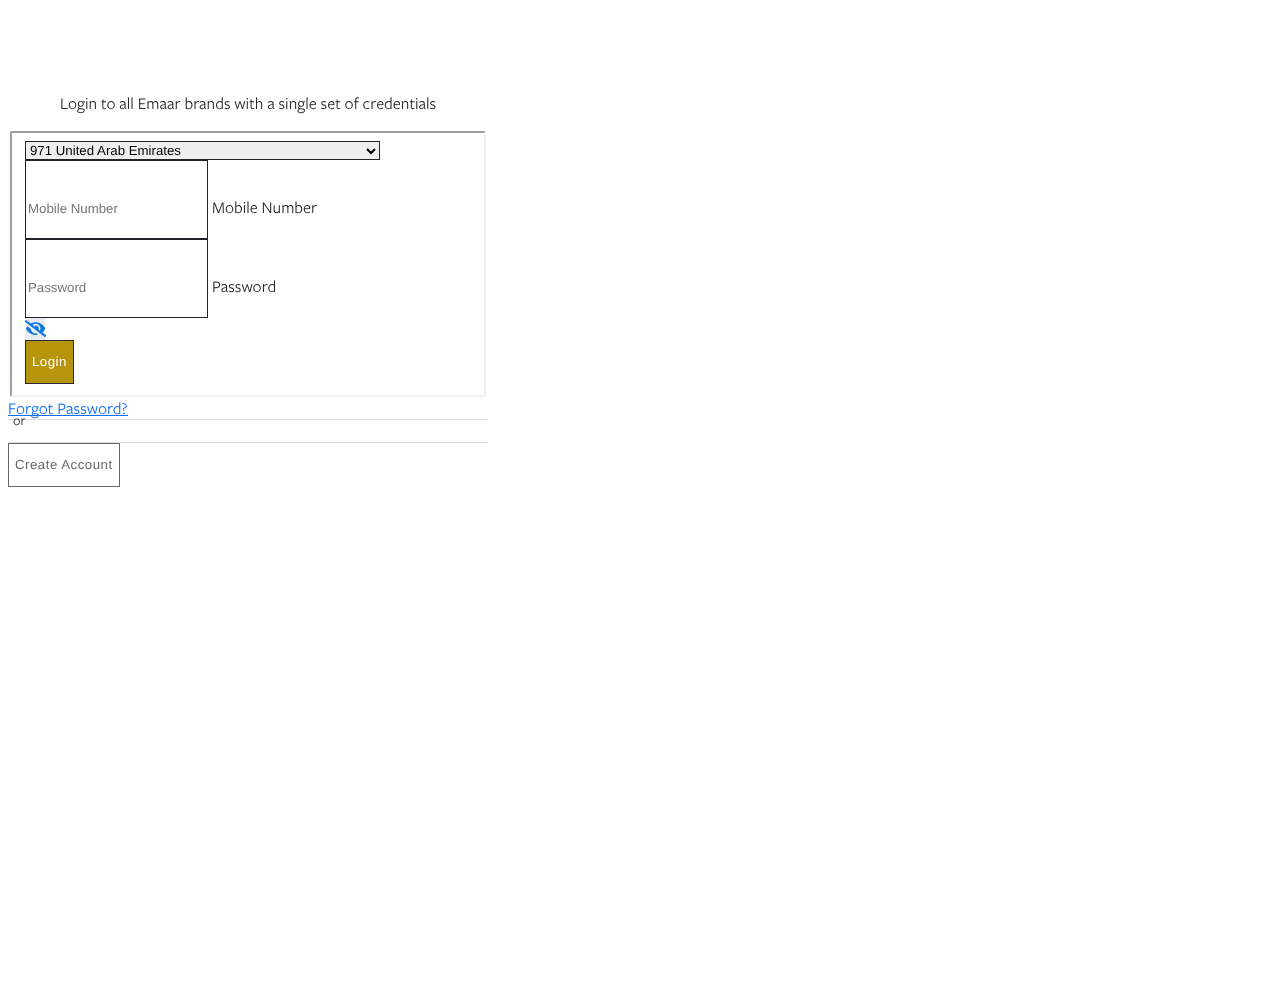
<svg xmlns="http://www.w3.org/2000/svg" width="1285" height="986">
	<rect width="100%" height="100%" fill="#FFFFFF" />
	<text x="60" y="109" font-family="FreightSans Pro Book" font-size="17" fill="#25282D">Login to all Emaar brands with a single set of credentials</text>
	<path d="M10 131H486L484 133H12Z" fill="#9F9F9F" />
	<path d="M486 131V397L484 395V133Z" fill="#EFEFEF" />
	<path d="M486 397H10L12 395H484Z" fill="#EFEFEF" />
	<path d="M10 397V131L12 133V395Z" fill="#9F9F9F" />
	<rect x="25.5" y="141.5" width="354" height="18" fill="#EFEFEF" stroke="#212529" />
	<path d="M367 149L371 153L375 149" fill="none" stroke="#000000" stroke-width="2" />
	<text x="30" y="155" font-family="Liberation Sans" font-size="13.25" fill="#000000">971 United Arab Emirates</text>
	<rect x="25.5" y="160.5" width="182" height="78" fill="none" stroke="#212529" />
	<text x="28" y="213" font-family="Liberation Sans" font-size="13.25" fill="#757575">Mobile Number</text>
	<text x="212" y="213" font-family="FreightSans Pro Book" font-size="17" fill="#25282D">Mobile Number</text>
	<rect x="25.5" y="239.5" width="182" height="78" fill="none" stroke="#212529" />
	<text x="28" y="292" font-family="Liberation Sans" font-size="13.25" fill="#757575">Password</text>
	<text x="212" y="292" font-family="FreightSans Pro Book" font-size="17" fill="#25282D">Password</text>
	<rect x="25" y="318" width="20" height="22" fill="#E9ECEF" />
	<image x="25" y="320" width="22" height="18" href="assets/img1.png" />
	<rect x="25.5" y="340.5" width="48" height="43" fill="#B7950B" stroke="#25282D" />
	<text x="32" y="366" font-family="Liberation Sans" font-size="13.25" letter-spacing="0.5" fill="#FFFFFF">Login</text>
	<rect x="8" y="415" width="120" height="1" fill="#0D6EFD" />
	<text x="8" y="414" font-family="FreightSans Pro Book" font-size="17" fill="#0D6EFD">Forgot Password?</text>
	<rect x="8" y="419" width="480" height="1" fill="#DCDDDD" />
	<text x="13" y="425" font-family="FreightSans Pro Book" font-size="14" fill="#25282D">or</text>
	<rect x="8" y="442" width="480" height="1" fill="#DCDDDD" />
	<rect x="8.5" y="443.5" width="111" height="43" fill="none" stroke="#646669" />
	<text x="15" y="469" font-family="Liberation Sans" font-size="13.25" letter-spacing="0.5" fill="#66696C">Create Account</text>
</svg>
